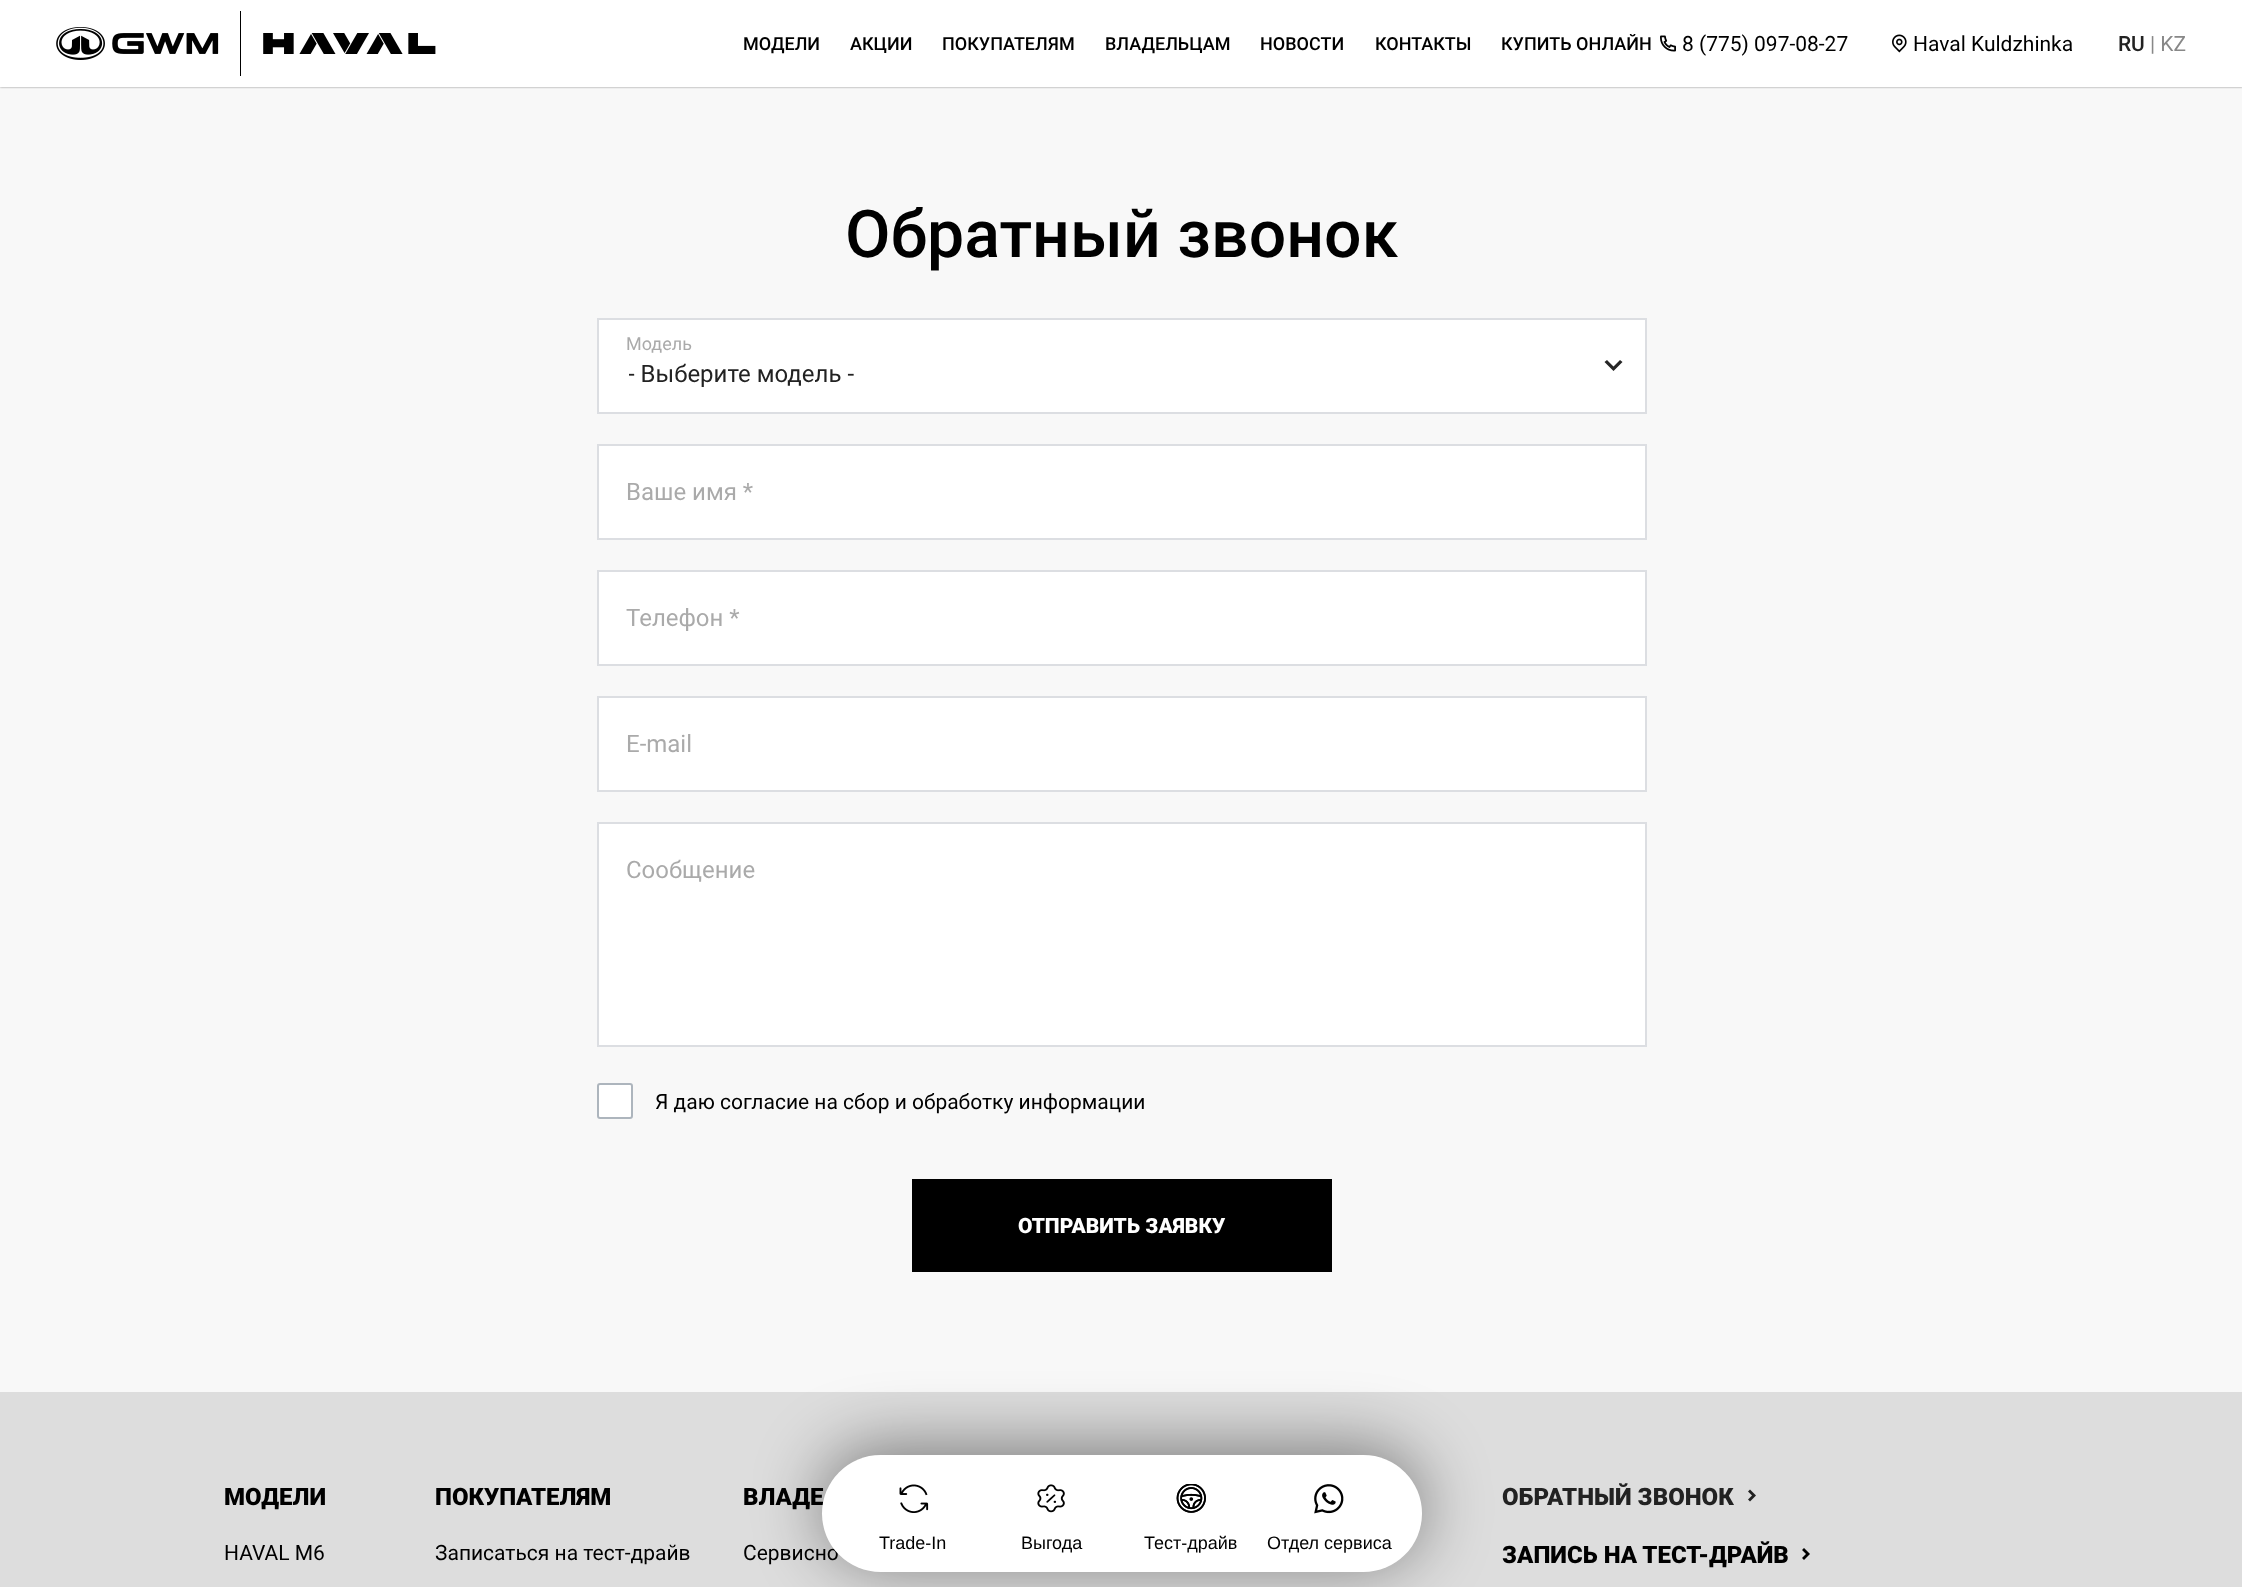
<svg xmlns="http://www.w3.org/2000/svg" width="2242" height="1587">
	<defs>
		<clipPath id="clip1"><rect x="629" y="360" width="987" height="29" /></clipPath>
	</defs>
	<rect width="100%" height="100%" fill="#F8F8F8" />
	<rect x="0" y="0" width="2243" height="87" fill="#888888" filter="blur(1px)" />
	<rect x="0" y="0" width="2242" height="87" fill="#FFFFFF" />
	<image x="56" y="11" width="380" height="65" href="assets/img1.png" />
	<g font-family="Roboto" font-size="18" font-weight="500" fill="#000000">
		<text x="743" y="50">МОДЕЛИ</text>
		<text x="850" y="50">АКЦИИ</text>
		<text x="942" y="50">ПОКУПАТЕЛЯМ</text>
		<text x="1105" y="50">ВЛАДЕЛЬЦАМ</text>
		<text x="1260" y="50">НОВОСТИ</text>
		<text x="1375" y="50">КОНТАКТЫ</text>
		<text x="1501" y="50">КУПИТЬ ОНЛАЙН</text>
	</g>
	<image x="1660" y="35" width="16" height="17" href="assets/img2.png" />
	<text x="1682" y="51" font-family="Roboto" font-size="21" fill="#000000">8 (775) 097-08-27</text>
	<image x="1892" y="34" width="15" height="19" href="assets/img3.png" />
	<text x="1913" y="51" font-family="Roboto" font-size="21" fill="#000000">Haval Kuldzhinka</text>
	<text x="2118" y="51" font-family="Roboto" font-size="21" font-weight="500" fill="#222222">RU</text>
	<text x="2150" y="51" font-family="Roboto" font-size="21" fill="#888888">| KZ</text>
	<text x="845" y="257" font-family="Roboto" font-size="66" font-weight="500" fill="#000000">Обратный звонок</text>
	<rect x="598" y="319" width="1048" height="94" fill="#FFFFFF" stroke="#DCDEE2" stroke-width="2" />
	<text x="626" y="350" font-family="Roboto" font-size="18" fill="#AAAAAA">Модель</text>
	<g clip-path="url(#clip1)">
		<text x="628" y="382" font-family="Roboto" font-size="24" fill="#222222">- Выберите модель -</text>
	</g>
	<path d="M1607 360L1604.5 362L1613.5 371L1622.5 362L1620 360L1613.5 366.5Z" fill="#262626" />
	<rect x="598" y="445" width="1048" height="94" fill="#FFFFFF" stroke="#DCDEE2" stroke-width="2" />
	<text x="626" y="500" font-family="Roboto" font-size="24" fill="#AAAAAA">Ваше имя *</text>
	<rect x="598" y="571" width="1048" height="94" fill="#FFFFFF" stroke="#DCDEE2" stroke-width="2" />
	<text x="626" y="626" font-family="Roboto" font-size="24" fill="#AAAAAA">Телефон *</text>
	<rect x="598" y="697" width="1048" height="94" fill="#FFFFFF" stroke="#DCDEE2" stroke-width="2" />
	<text x="626" y="752" font-family="Roboto" font-size="24" fill="#AAAAAA">E-mail</text>
	<rect x="598" y="823" width="1048" height="223" fill="#FFFFFF" stroke="#DCDEE2" stroke-width="2" />
	<text x="626" y="878" font-family="Roboto" font-size="24" fill="#AAAAAA">Сообщение</text>
	<rect x="598" y="1084" width="34" height="34" rx="2" fill="#FFFFFF" stroke="#ADB5BD" stroke-width="2" />
	<text x="655" y="1109" font-family="Roboto" font-size="21" fill="#000000">Я даю согласие на сбор и обработку информации</text>
	<rect x="912" y="1179" width="420" height="93" fill="#000000" />
	<text x="1018" y="1233" font-family="Roboto" font-size="21" font-weight="900" fill="#FFFFFF">ОТПРАВИТЬ ЗАЯВКУ</text>
	<rect x="0" y="1392" width="2242" height="195" fill="#DDDDDD" />
	<text x="224" y="1505" font-family="Roboto" font-size="24" font-weight="900" fill="#000000">МОДЕЛИ</text>
	<text x="224" y="1560" font-family="Roboto" font-size="21" fill="#000000">HAVAL M6</text>
	<text x="435" y="1505" font-family="Roboto" font-size="24" font-weight="900" fill="#000000">ПОКУПАТЕЛЯМ</text>
	<text x="435" y="1560" font-family="Roboto" font-size="21" fill="#000000">Записаться на тест-драйв</text>
	<text x="743" y="1505" font-family="Roboto" font-size="24" font-weight="900" fill="#000000">ВЛАДЕ</text>
	<text x="743" y="1560" font-family="Roboto" font-size="21" fill="#000000">Сервисно</text>
	<text x="1502" y="1505" font-family="Roboto" font-size="24" font-weight="900" fill="#222222">ОБРАТНЫЙ ЗВОНОК</text>
	<image x="1748" y="1489" width="8" height="13" href="assets/img4.png" />
	<text x="1502" y="1563" font-family="Roboto" font-size="24" font-weight="900" fill="#000000">ЗАПИСЬ НА ТЕСТ-ДРАЙВ</text>
	<image x="1802" y="1548" width="8" height="12" href="assets/img5.png" />
	<rect x="822" y="1448" width="600" height="117" rx="58.5" fill="#000000" fill-opacity="0.45" filter="blur(34px)" />
	<rect x="822" y="1455" width="600" height="117" rx="58.5" fill="#FFFFFF" />
	<image x="899" y="1484" width="30" height="29" href="assets/img6.png" />
	<text x="879" y="1549" font-family="Liberation Sans" font-size="18" fill="#000000">Trade-In</text>
	<image x="1037" y="1484" width="28" height="29" href="assets/img7.png" />
	<text x="1021" y="1549" font-family="Liberation Sans" font-size="18" fill="#000000">Выгода</text>
	<image x="1176" y="1484" width="30" height="29" href="assets/img8.png" />
	<text x="1144" y="1549" font-family="Liberation Sans" font-size="18" fill="#000000">Тест-драйв</text>
	<image x="1314" y="1484" width="30" height="30" href="assets/img9.png" />
	<text x="1267" y="1549" font-family="Liberation Sans" font-size="18" fill="#000000">Отдел сервиса</text>
</svg>
